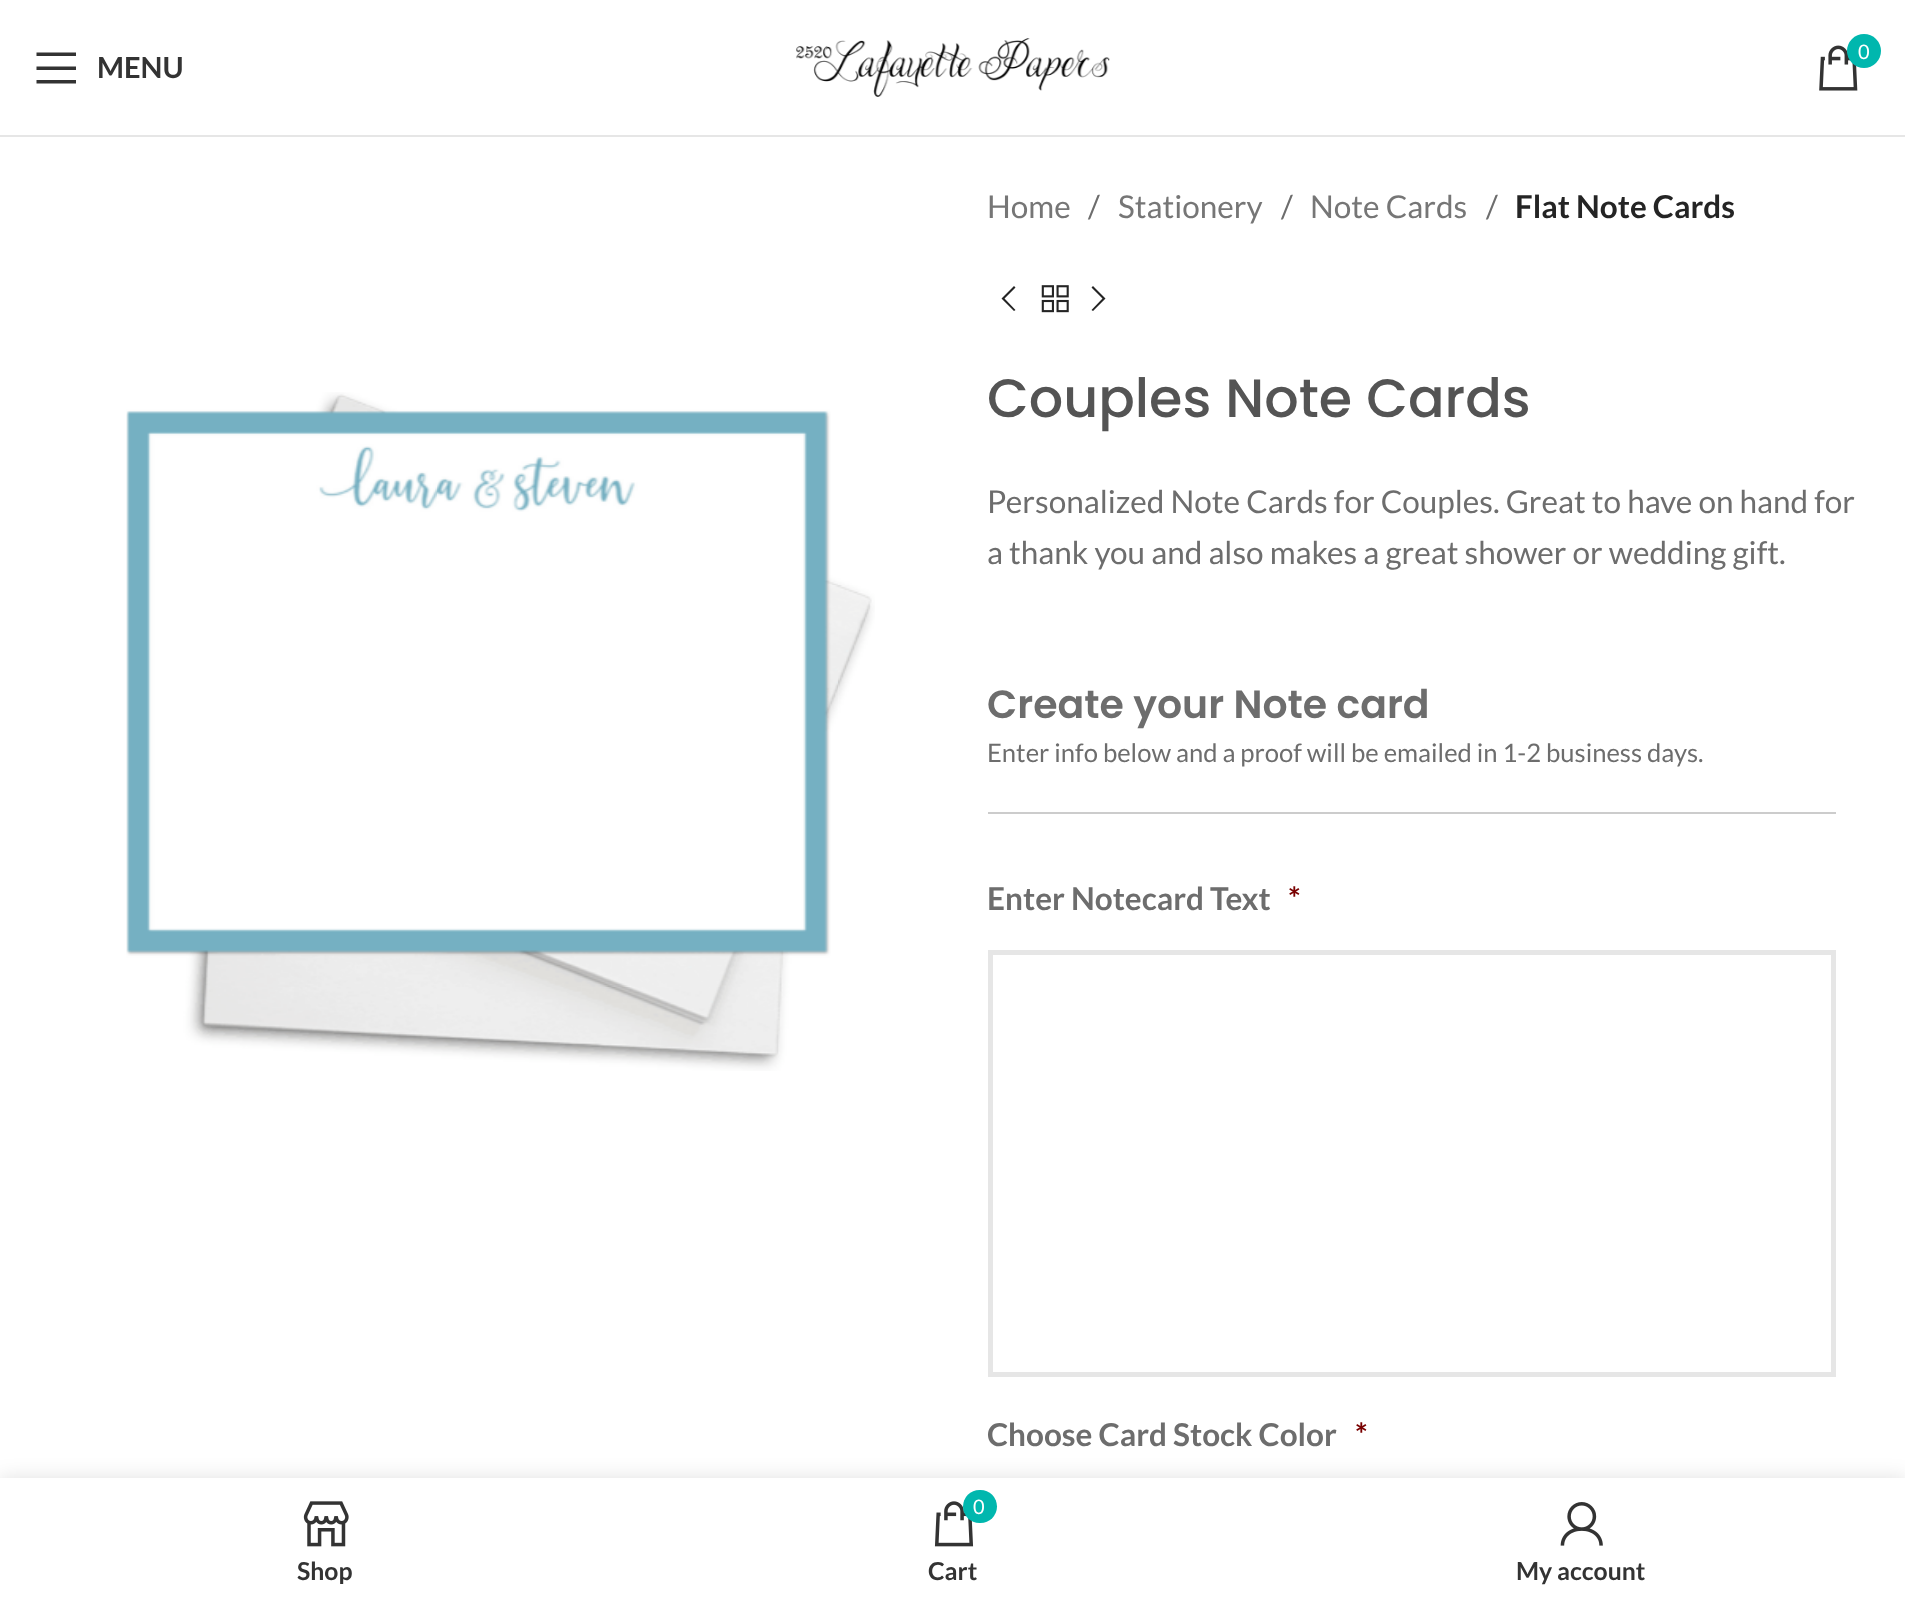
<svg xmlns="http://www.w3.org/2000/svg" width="1905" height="1600">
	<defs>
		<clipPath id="clip1"><rect x="34" y="1555" width="583" height="29" /></clipPath>
	</defs>
	<rect width="100%" height="100%" fill="#FFFFFF" />
	<rect x="0" y="135" width="1905" height="2" fill="#E6E6E6" />
	<image x="796" y="38" width="314" height="59" href="assets/img1.png" />
	<image x="1819" y="45" width="39" height="46" href="assets/img2.png" />
	<circle cx="1864" cy="51" r="17" fill="#00B7AE" />
	<text x="1858" y="59" font-family="Lato" font-size="20" fill="#FFFFFF">0</text>
	<path d="M36.5 56H76V52.5H36.5ZM36.5 70H76V66.5H36.5ZM36.5 83.5H76V80H36.5Z" fill="#333333" />
	<text x="97" y="78" font-family="Lato" font-size="29" font-weight="700" fill="#333333">MENU</text>
	<image x="126" y="392" width="749" height="679" href="assets/img3.png" />
	<text x="987" y="218" font-family="Lato" font-size="31.5" fill="#767676">Home</text>
	<text x="1088" y="218" font-family="Lato" font-size="31.5" fill="#6D6D6D">/</text>
	<text x="1118" y="218" font-family="Lato" font-size="31.5" fill="#767676">Stationery</text>
	<text x="1281" y="218" font-family="Lato" font-size="31.5" fill="#6D6D6D">/</text>
	<text x="1310" y="218" font-family="Lato" font-size="31.5" fill="#767676">Note Cards</text>
	<text x="1486" y="218" font-family="Lato" font-size="31.5" fill="#6D6D6D">/</text>
	<text x="1515" y="218" font-family="Lato" font-size="31.5" font-weight="700" fill="#242424">Flat Note Cards</text>
	<path d="M1015.5 287.5L1014 286L1001.5 298.5L1014 311L1015.5 310L1004.5 298.5Z" fill="#242424" />
	<image x="1041" y="285" width="28" height="28" href="assets/img4.png" />
	<path d="M1091.5 287.5L1102.5 298.5L1091.5 310L1093 311L1105.5 298.5L1093 286Z" fill="#242424" />
	<text x="987" y="417" font-family="Poppins" font-size="54" font-weight="500" fill="#545454">Couples Note Cards</text>
	<g font-family="Lato" font-size="31.5" fill="#6D6D6D">
		<text x="987" y="513">Personalized Note Cards for Couples. Great to have on hand for</text>
		<text x="987" y="564">a thank you and also makes a great shower or wedding gift.</text>
	</g>
	<rect x="988" y="812" width="848" height="2" fill="#CCCCCC" />
	<text x="987" y="718" font-family="Poppins" font-size="39.4" font-weight="600" fill="#6D6D6D">Create your Note card</text>
	<text x="987" y="762" font-family="Lato" font-size="25.6" fill="#6D6D6D">Enter info below and a proof will be emailed in 1-2 business days.</text>
	<text x="987" y="910" font-family="Lato" font-size="31.5" font-weight="700" fill="#6D6D6D">Enter Notecard Text</text>
	<text x="1288" y="910" font-family="Lato" font-size="31.5" font-weight="700" fill="#790000">*</text>
	<rect x="990.5" y="952.5" width="843" height="422" fill="none" stroke="#E6E6E6" stroke-width="5" />
	<text x="987" y="1446" font-family="Lato" font-size="31.5" font-weight="700" fill="#6D6D6D">Choose Card Stock Color</text>
	<text x="1355" y="1446" font-family="Lato" font-size="31.5" font-weight="700" fill="#790000">*</text>
	<rect x="0" y="1478" width="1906" height="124" fill="#000000" fill-opacity="0.12" filter="blur(10px)" />
	<rect x="0" y="1478" width="1905" height="122" fill="#FFFFFF" />
	<image x="303" y="1501" width="46" height="46" href="assets/img5.png" />
	<g clip-path="url(#clip1)">
		<text x="297" y="1580" font-family="Lato" font-size="24.75" font-weight="700" fill="#333333">Shop</text>
	</g>
	<image x="934" y="1501" width="40" height="46" href="assets/img6.png" />
	<rect x="963" y="1490" width="34" height="33" rx="16.5" fill="#00B7AE" />
	<text x="973" y="1514" font-family="Lato" font-size="20" fill="#FFFFFF">0</text>
	<text x="928" y="1580" font-family="Lato" font-size="24.75" font-weight="700" fill="#333333">Cart</text>
	<image x="1560" y="1502" width="43" height="44" href="assets/img7.png" />
	<text x="1516" y="1580" font-family="Lato" font-size="24.75" font-weight="700" fill="#333333">My account</text>
</svg>
